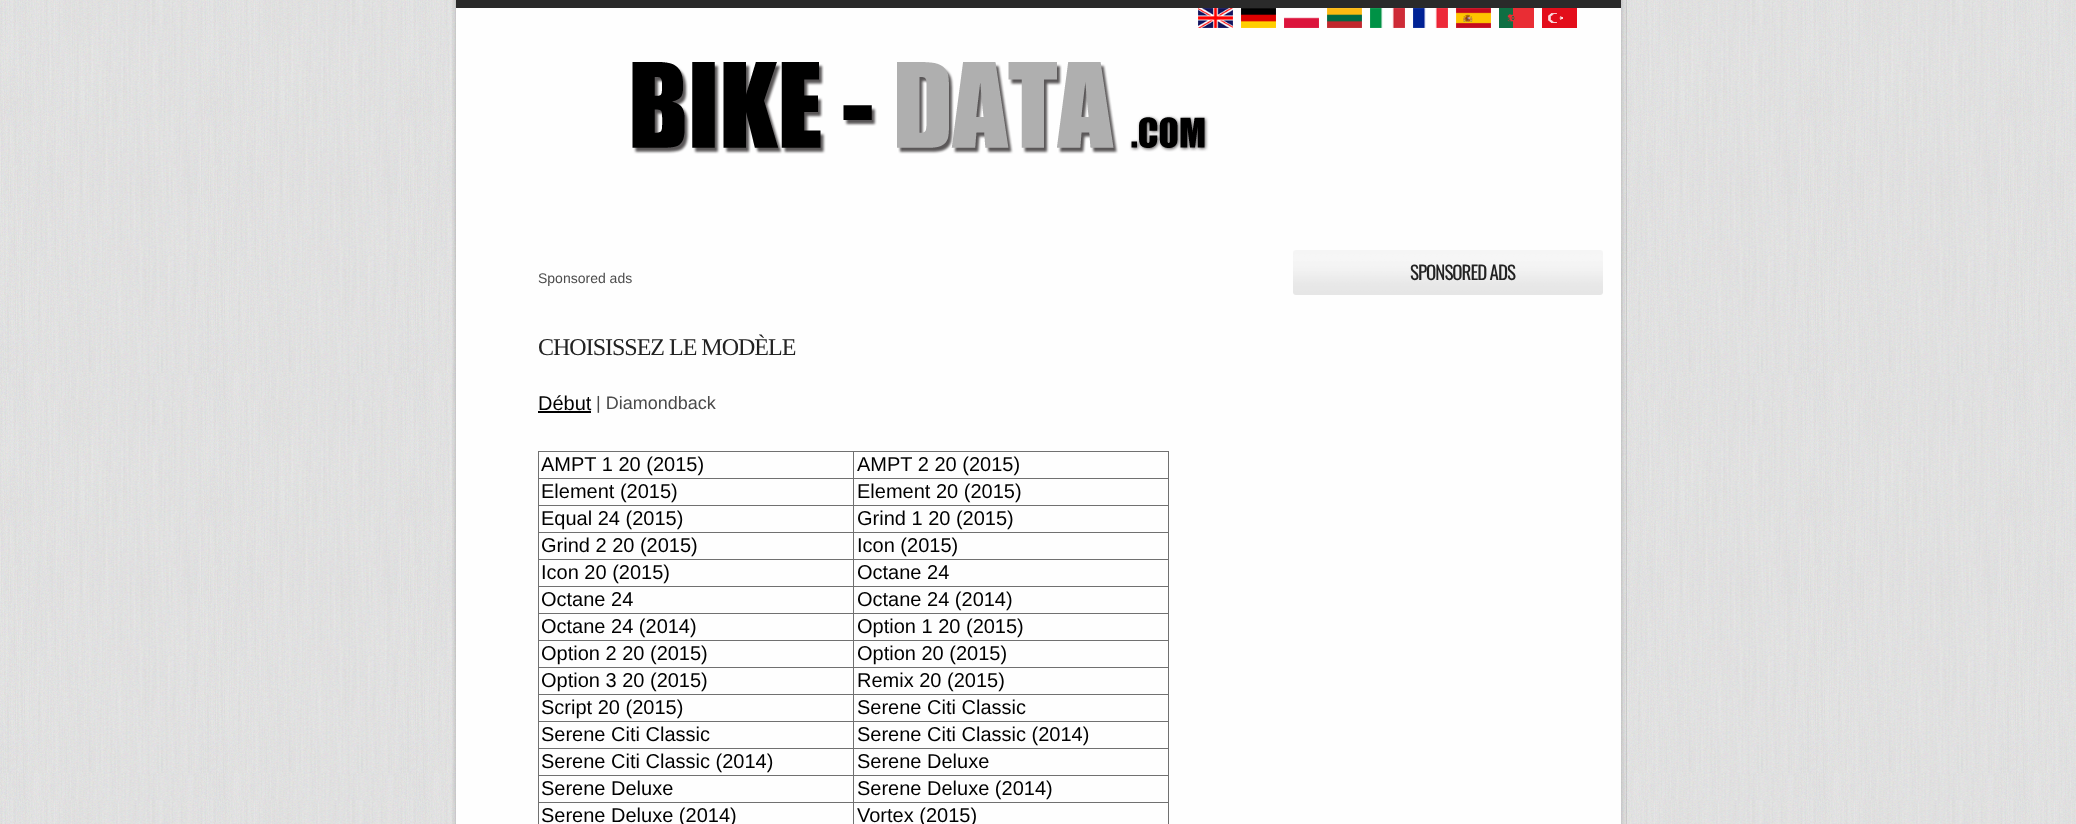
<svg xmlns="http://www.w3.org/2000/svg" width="2076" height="824">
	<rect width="100%" height="100%" fill="#FFFFFF" />
	<image x="0" y="0" width="2076" height="824" href="assets/img1.png" />
	<rect x="456" y="8" width="1165" height="816" fill="#FEFEFE" />
	<image x="452" y="0" width="4" height="824" href="assets/img2.png" />
	<rect x="456" y="0" width="1165" height="8" fill="#2A2A2A" />
	<image x="1198" y="8" width="35" height="20" href="assets/img3.png" />
	<image x="1241" y="8" width="35" height="20" href="assets/img4.png" />
	<image x="1284" y="17" width="35" height="11" href="assets/img5.png" />
	<image x="1327" y="8" width="35" height="20" href="assets/img6.png" />
	<image x="1370" y="8" width="35" height="20" href="assets/img7.png" />
	<image x="1413" y="8" width="35" height="20" href="assets/img8.png" />
	<image x="1456" y="8" width="35" height="20" href="assets/img9.png" />
	<image x="1499" y="8" width="35" height="20" href="assets/img10.png" />
	<image x="1542" y="8" width="35" height="20" href="assets/img11.png" />
	<image x="632" y="62" width="577" height="92" href="assets/img12.png" />
	<image x="1621" y="0" width="6" height="824" href="assets/img13.png" />
	<text x="538" y="283" font-family="Liberation Sans" font-size="14" fill="#4B4B4B">Sponsored ads</text>
	<text x="538" y="355" font-family="Liberation Serif" font-size="24" letter-spacing="-1" fill="#222222">CHOISISSEZ LE MODÈLE</text>
	<text x="538" y="410" font-family="Liberation Sans" font-size="20" fill="#000000">Début</text>
	<rect x="538" y="411" width="53" height="2" fill="#000000" />
	<text x="596" y="409" font-family="Liberation Sans" font-size="18" fill="#4B4B4B">| Diamondback</text>
	<rect x="853" y="451" width="316" height="1" fill="#707070" />
	<rect x="853" y="478" width="316" height="1" fill="#707070" />
	<rect x="853" y="505" width="316" height="1" fill="#707070" />
	<rect x="853" y="532" width="316" height="1" fill="#707070" />
	<rect x="853" y="559" width="316" height="1" fill="#707070" />
	<rect x="853" y="586" width="316" height="1" fill="#707070" />
	<rect x="853" y="613" width="316" height="1" fill="#707070" />
	<rect x="853" y="640" width="316" height="1" fill="#707070" />
	<rect x="853" y="667" width="316" height="1" fill="#707070" />
	<rect x="853" y="694" width="316" height="1" fill="#707070" />
	<rect x="853" y="721" width="316" height="1" fill="#707070" />
	<rect x="853" y="748" width="316" height="1" fill="#707070" />
	<rect x="853" y="775" width="316" height="1" fill="#707070" />
	<rect x="853" y="802" width="316" height="1" fill="#707070" />
	<rect x="853" y="802" width="1" height="22" fill="#707070" />
	<rect x="538" y="802" width="316" height="1" fill="#707070" />
	<rect x="853" y="775" width="1" height="28" fill="#707070" />
	<rect x="538" y="775" width="316" height="1" fill="#707070" />
	<rect x="853" y="748" width="1" height="28" fill="#707070" />
	<rect x="538" y="748" width="316" height="1" fill="#707070" />
	<rect x="853" y="721" width="1" height="28" fill="#707070" />
	<rect x="538" y="721" width="316" height="1" fill="#707070" />
	<rect x="853" y="694" width="1" height="28" fill="#707070" />
	<rect x="538" y="694" width="316" height="1" fill="#707070" />
	<rect x="853" y="667" width="1" height="28" fill="#707070" />
	<rect x="538" y="667" width="316" height="1" fill="#707070" />
	<rect x="853" y="640" width="1" height="28" fill="#707070" />
	<rect x="538" y="640" width="316" height="1" fill="#707070" />
	<rect x="853" y="613" width="1" height="28" fill="#707070" />
	<rect x="538" y="613" width="316" height="1" fill="#707070" />
	<rect x="853" y="586" width="1" height="28" fill="#707070" />
	<rect x="538" y="586" width="316" height="1" fill="#707070" />
	<rect x="853" y="559" width="1" height="28" fill="#707070" />
	<rect x="538" y="559" width="316" height="1" fill="#707070" />
	<rect x="853" y="532" width="1" height="28" fill="#707070" />
	<rect x="538" y="532" width="316" height="1" fill="#707070" />
	<rect x="853" y="505" width="1" height="28" fill="#707070" />
	<rect x="538" y="505" width="316" height="1" fill="#707070" />
	<rect x="853" y="478" width="1" height="28" fill="#707070" />
	<rect x="538" y="478" width="316" height="1" fill="#707070" />
	<rect x="853" y="451" width="1" height="28" fill="#707070" />
	<rect x="538" y="451" width="316" height="1" fill="#707070" />
	<rect x="538" y="802" width="1" height="22" fill="#707070" />
	<rect x="538" y="775" width="1" height="28" fill="#707070" />
	<rect x="538" y="748" width="1" height="28" fill="#707070" />
	<rect x="538" y="721" width="1" height="28" fill="#707070" />
	<rect x="538" y="694" width="1" height="28" fill="#707070" />
	<rect x="538" y="667" width="1" height="28" fill="#707070" />
	<rect x="538" y="640" width="1" height="28" fill="#707070" />
	<rect x="538" y="613" width="1" height="28" fill="#707070" />
	<rect x="538" y="586" width="1" height="28" fill="#707070" />
	<rect x="538" y="559" width="1" height="28" fill="#707070" />
	<rect x="538" y="532" width="1" height="28" fill="#707070" />
	<rect x="538" y="505" width="1" height="28" fill="#707070" />
	<rect x="538" y="478" width="1" height="28" fill="#707070" />
	<rect x="538" y="451" width="1" height="28" fill="#707070" />
	<text x="541" y="471" font-family="Liberation Sans" font-size="20" fill="#000000">AMPT 1 20 (2015)</text>
	<rect x="1168" y="802" width="1" height="22" fill="#707070" />
	<rect x="1168" y="775" width="1" height="28" fill="#707070" />
	<rect x="1168" y="748" width="1" height="28" fill="#707070" />
	<rect x="1168" y="721" width="1" height="28" fill="#707070" />
	<rect x="1168" y="694" width="1" height="28" fill="#707070" />
	<rect x="1168" y="667" width="1" height="28" fill="#707070" />
	<rect x="1168" y="640" width="1" height="28" fill="#707070" />
	<rect x="1168" y="613" width="1" height="28" fill="#707070" />
	<rect x="1168" y="586" width="1" height="28" fill="#707070" />
	<rect x="1168" y="559" width="1" height="28" fill="#707070" />
	<rect x="1168" y="532" width="1" height="28" fill="#707070" />
	<rect x="1168" y="505" width="1" height="28" fill="#707070" />
	<rect x="1168" y="478" width="1" height="28" fill="#707070" />
	<rect x="1168" y="451" width="1" height="28" fill="#707070" />
	<g font-family="Liberation Sans" font-size="20" fill="#000000">
		<text x="857" y="471">AMPT 2 20 (2015)</text>
		<text x="541" y="498">Element (2015)</text>
		<text x="857" y="498">Element 20 (2015)</text>
		<text x="541" y="525">Equal 24 (2015)</text>
		<text x="857" y="525">Grind 1 20 (2015)</text>
		<text x="541" y="552">Grind 2 20 (2015)</text>
		<text x="857" y="552">Icon (2015)</text>
		<text x="541" y="579">Icon 20 (2015)</text>
		<text x="857" y="579">Octane 24</text>
		<text x="541" y="606">Octane 24</text>
		<text x="857" y="606">Octane 24 (2014)</text>
		<text x="541" y="633">Octane 24 (2014)</text>
		<text x="857" y="633">Option 1 20 (2015)</text>
		<text x="541" y="660">Option 2 20 (2015)</text>
		<text x="857" y="660">Option 20 (2015)</text>
		<text x="541" y="687">Option 3 20 (2015)</text>
		<text x="857" y="687">Remix 20 (2015)</text>
		<text x="541" y="714">Script 20 (2015)</text>
		<text x="857" y="714">Serene Citi Classic</text>
		<text x="541" y="741">Serene Citi Classic</text>
		<text x="857" y="741">Serene Citi Classic (2014)</text>
		<text x="541" y="768">Serene Citi Classic (2014)</text>
		<text x="857" y="768">Serene Deluxe</text>
		<text x="541" y="795">Serene Deluxe</text>
		<text x="857" y="795">Serene Deluxe (2014)</text>
		<text x="541" y="822">Serene Deluxe (2014)</text>
		<text x="857" y="822">Vortex (2015)</text>
	</g>
	<image x="1293" y="250" width="310" height="45" href="assets/img14.png" />
	<text x="1410" y="280" font-family="Oswald" font-size="19" letter-spacing="-1" fill="#222222">SPONSORED ADS</text>
</svg>
